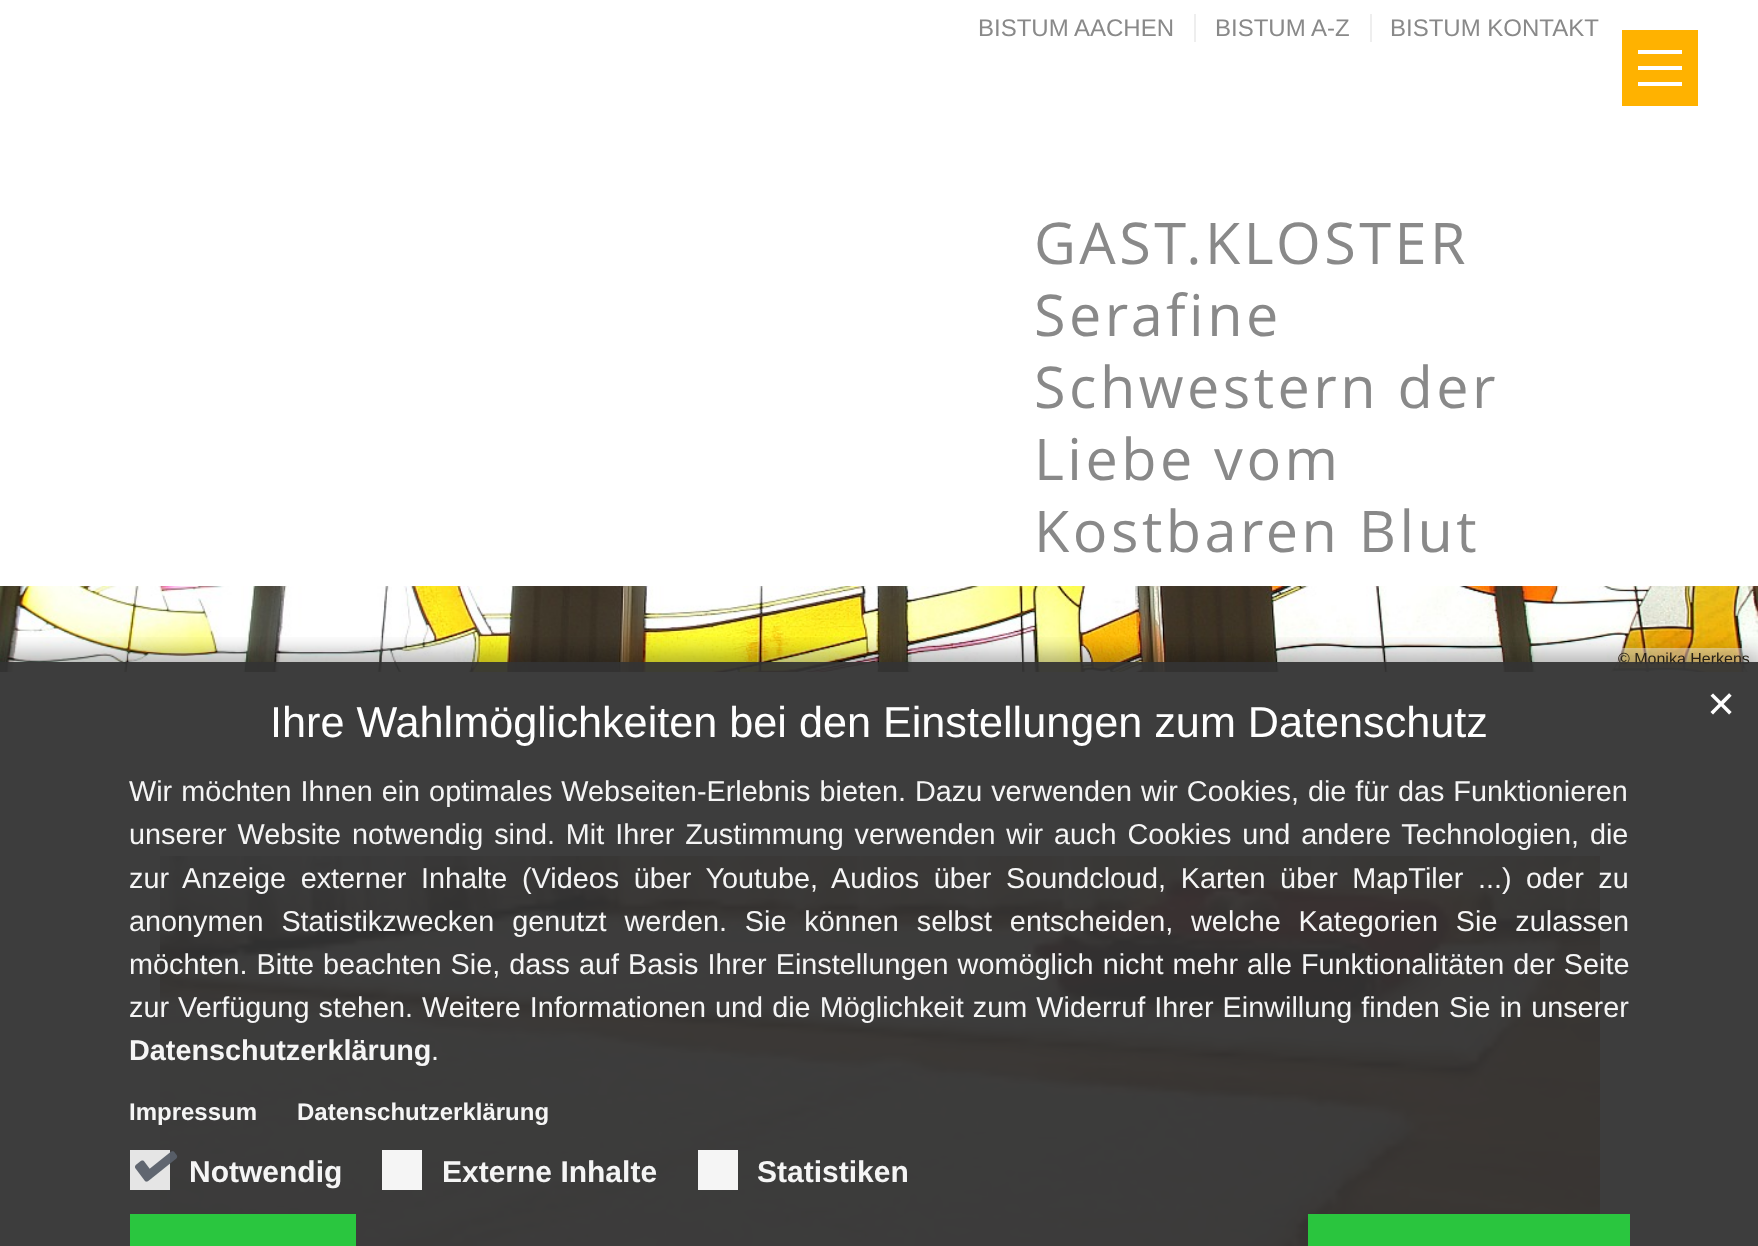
<svg xmlns="http://www.w3.org/2000/svg" width="1758" height="1246">
	<defs>
		<clipPath id="clip1"><rect x="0" y="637" width="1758" height="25" /></clipPath>
	</defs>
	<rect width="100%" height="100%" fill="#FFFFFF" />
	<g font-family="Liberation Sans" font-size="24" fill="#898989">
		<text x="978" y="36">BISTUM AACHEN</text>
		<text x="1215" y="36">BISTUM A-Z</text>
	</g>
	<rect x="1194" y="14" width="2" height="28" fill="#EEEEEE" />
	<text x="1390" y="36" font-family="Liberation Sans" font-size="24" fill="#898989">BISTUM KONTAKT</text>
	<rect x="1370" y="14" width="2" height="28" fill="#EEEEEE" />
	<g font-family="Open Sans" font-size="57.5" letter-spacing="3.5" fill="#898989">
		<text x="1034" y="264">GAST.KLOSTER</text>
		<text x="1034" y="336">Serafine</text>
		<text x="1034" y="408">Schwestern der</text>
		<text x="1034" y="480">Liebe vom</text>
		<text x="1034" y="552">Kostbaren Blut</text>
	</g>
	<image x="0" y="586" width="1758" height="86" href="assets/img1.png" />
	<rect x="1610" y="648" width="148" height="24" fill="#FFFFFF" fill-opacity="0.48" />
	<text x="1618" y="664" font-family="Liberation Sans" font-size="16" fill="#30291B">© Monika Herkens</text>
	<rect x="1622" y="30" width="76" height="76" fill="#FFB200" />
	<rect x="1638" y="66" width="44" height="4" fill="#FFFFFF" />
	<rect x="1638" y="50" width="44" height="4" fill="#FFFFFF" />
	<rect x="1638" y="82" width="44" height="4" fill="#FFFFFF" />
	<path d="M160 845H1600" fill="none" stroke="#EEEEEE" stroke-width="2" stroke-dasharray="2 2" />
	<image x="160" y="856" width="1440" height="390" href="assets/img2.png" />
	<g clip-path="url(#clip1)">
		<rect x="-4" y="652" width="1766" height="592" fill="#000000" fill-opacity="0.28" filter="blur(10px)" />
	</g>
	<rect x="0" y="662" width="1758" height="584" fill="#333333" fill-opacity="0.95" />
	<text x="270" y="737" font-family="Liberation Sans" font-size="43.2" fill="#FFFFFF">Ihre Wahlmöglichkeiten bei den Einstellungen zum Datenschutz</text>
	<text x="1706" y="717" font-family="DejaVu Sans" font-size="36" fill="#FFFFFF">✕</text>
	<g font-family="Liberation Sans" font-size="28.8" fill="#F5F5F5">
		<text x="129" y="801" word-spacing="1">Wir möchten Ihnen ein optimales Webseiten-Erlebnis bieten. Dazu verwenden wir Cookies, die für das Funktionieren</text>
		<text x="129" y="844" word-spacing="2.9">unserer Website notwendig sind. Mit Ihrer Zustimmung verwenden wir auch Cookies und andere Technologien, die</text>
		<text x="129" y="888" word-spacing="6.6">zur Anzeige externer Inhalte (Videos über Youtube, Audios über Soundcloud, Karten über MapTiler ...) oder zu</text>
		<text x="129" y="931" word-spacing="9.9">anonymen Statistikzwecken genutzt werden. Sie können selbst entscheiden, welche Kategorien Sie zulassen</text>
		<text x="129" y="974" word-spacing="1">möchten. Bitte beachten Sie, dass auf Basis Ihrer Einstellungen womöglich nicht mehr alle Funktionalitäten der Seite</text>
		<text x="129" y="1017" word-spacing="1.1">zur Verfügung stehen. Weitere Informationen und die Möglichkeit zum Widerruf Ihrer Einwillung finden Sie in unserer</text>
	</g>
	<text x="129" y="1060" font-family="Liberation Sans" font-size="28.8" font-weight="700" fill="#F5F5F5">Datenschutzerklärung</text>
	<text x="431" y="1060" font-family="Liberation Sans" font-size="28.8" fill="#F5F5F5">.</text>
	<g font-family="Liberation Sans" font-size="24" font-weight="700" fill="#F5F5F5">
		<text x="129" y="1120">Impressum</text>
		<text x="297" y="1120">Datenschutzerklärung</text>
	</g>
	<rect x="130" y="1150" width="40" height="40" fill="#EEEEEE" fill-opacity="0.95" />
	<image x="135" y="1151" width="43" height="31" href="assets/img3.png" />
	<text x="189" y="1182" font-family="Liberation Sans" font-size="30" font-weight="700" fill="#F5F5F5">Notwendig</text>
	<rect x="382" y="1150" width="40" height="40" fill="#F5F5F5" />
	<text x="442" y="1182" font-family="Liberation Sans" font-size="30" font-weight="700" fill="#F5F5F5">Externe Inhalte</text>
	<rect x="698" y="1150" width="40" height="40" fill="#F5F5F5" />
	<text x="757" y="1182" font-family="Liberation Sans" font-size="30" font-weight="700" fill="#F5F5F5">Statistiken</text>
	<rect x="130" y="1214" width="226" height="32" fill="#29CE3F" fill-opacity="0.95" />
	<rect x="1308" y="1214" width="322" height="32" fill="#29CE3F" fill-opacity="0.95" />
</svg>
